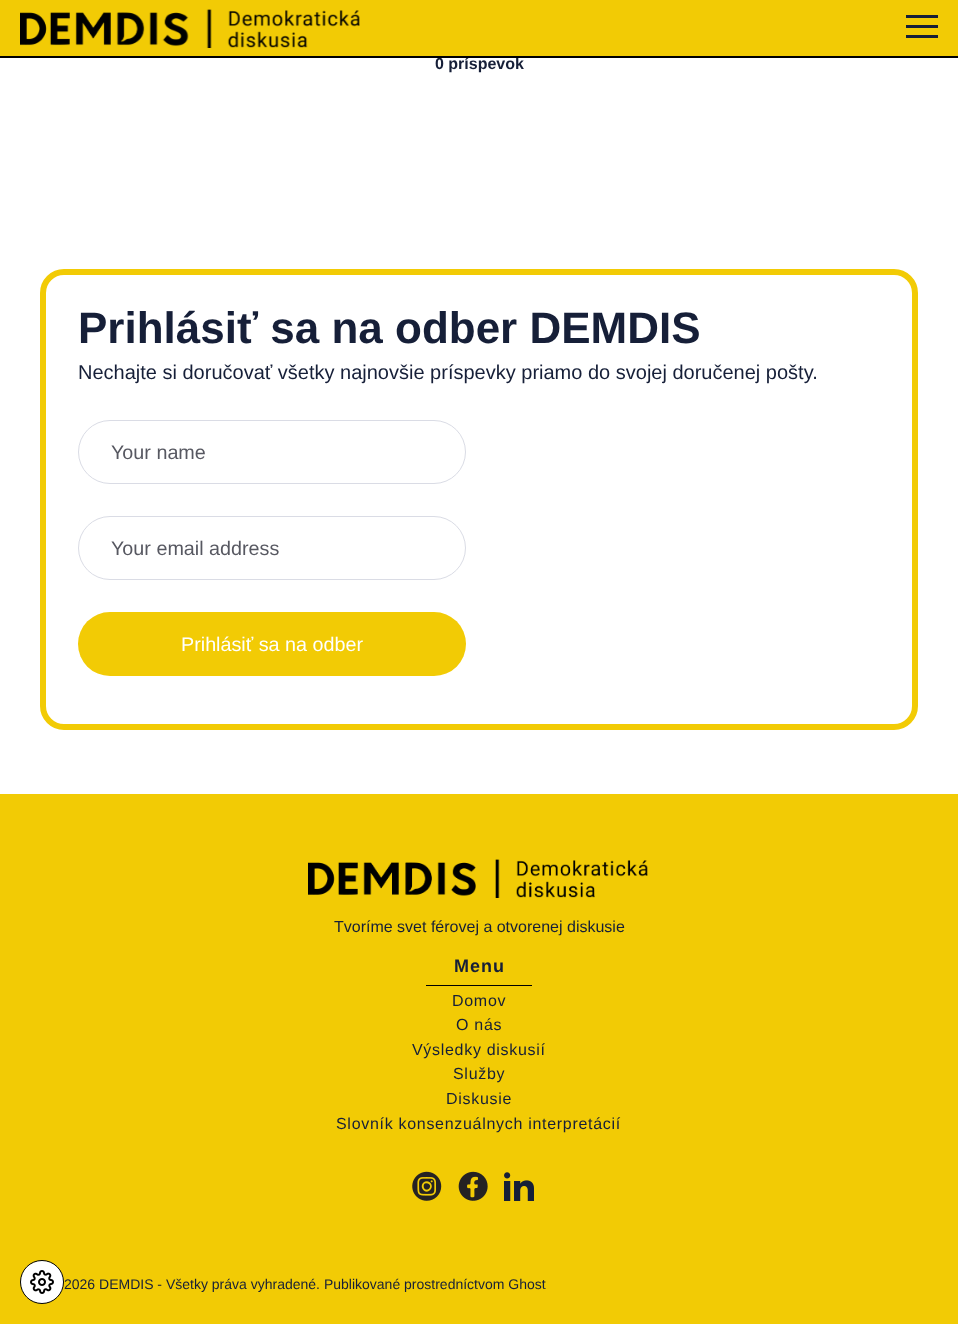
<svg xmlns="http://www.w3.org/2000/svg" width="958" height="1324">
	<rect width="100%" height="100%" fill="#FFFFFF" />
	<rect x="0" y="794" width="958" height="530" fill="#F2CB05" />
	<circle cx="42" cy="1282" r="21.5" fill="#FFFFFF" stroke="#000000" />
	<image x="30" y="1270" width="24" height="24" href="assets/img1.png" />
	<rect x="0" y="0" width="958" height="56" fill="#F2CB05" />
	<text x="435" y="69" font-family="Liberation Sans" font-size="16" font-weight="700" fill="#161F38">0 príspevok</text>
	<rect x="0" y="56" width="958" height="2" fill="#000000" />
	<image x="20" y="9" width="340" height="39" href="assets/img2.png" />
	<rect x="906" y="15" width="32" height="3" fill="#161F38" />
	<rect x="906" y="25" width="32" height="3" fill="#161F38" />
	<rect x="906" y="35" width="32" height="3" fill="#161F38" />
	<rect x="43" y="272" width="872" height="455" rx="21" fill="none" stroke="#F2CB05" stroke-width="6" />
	<text x="78" y="343" font-family="Liberation Sans" font-size="44" font-weight="700" fill="#161F38">Prihlásiť sa na odber DEMDIS</text>
	<text x="78" y="379" font-family="Liberation Sans" font-size="20" fill="#161F38">Nechajte si doručovať všetky najnovšie príspevky priamo do svojej doručenej pošty.</text>
	<rect x="78.5" y="420.5" width="387" height="63" rx="31.5" fill="none" stroke="#DADCE5" />
	<text x="111" y="459" font-family="Liberation Sans" font-size="19.75" fill="#575861">Your name</text>
	<rect x="78.5" y="516.5" width="387" height="63" rx="31.5" fill="none" stroke="#DADCE5" />
	<text x="111" y="555" font-family="Liberation Sans" font-size="19.75" fill="#575861">Your email address</text>
	<rect x="78" y="612" width="388" height="64" rx="32" fill="#F2CB05" />
	<text x="181" y="651" font-family="Liberation Sans" font-size="19.75" fill="#FFFFFF">Prihlásiť sa na odber</text>
	<image x="308" y="859" width="340" height="39" href="assets/img3.png" />
	<text x="334" y="932" font-family="Liberation Sans" font-size="16" fill="#161F38">Tvoríme svet férovej a otvorenej diskusie</text>
	<text x="454" y="972" font-family="Liberation Sans" font-size="18" font-weight="700" letter-spacing="1" fill="#161F38">Menu</text>
	<rect x="426" y="985" width="106" height="1" fill="#000000" />
	<g font-family="Liberation Sans" font-size="16" letter-spacing="0.7" fill="#161F38">
		<text x="452" y="1006">Domov</text>
		<text x="456" y="1030">O nás</text>
		<text x="412" y="1055">Výsledky diskusií</text>
		<text x="453" y="1079">Služby</text>
		<text x="446" y="1104">Diskusie</text>
		<text x="336" y="1129">Slovník konsenzuálnych interpretácií</text>
	</g>
	<image x="412" y="1171" width="30" height="30" href="assets/img4.png" />
	<image x="458" y="1171" width="30" height="30" href="assets/img5.png" />
	<image x="504" y="1172" width="30" height="29" href="assets/img6.png" />
	<text x="64" y="1289" font-family="Liberation Sans" font-size="14" fill="#161F38">2026 DEMDIS - Všetky práva vyhradené. Publikované prostredníctvom Ghost</text>
</svg>
